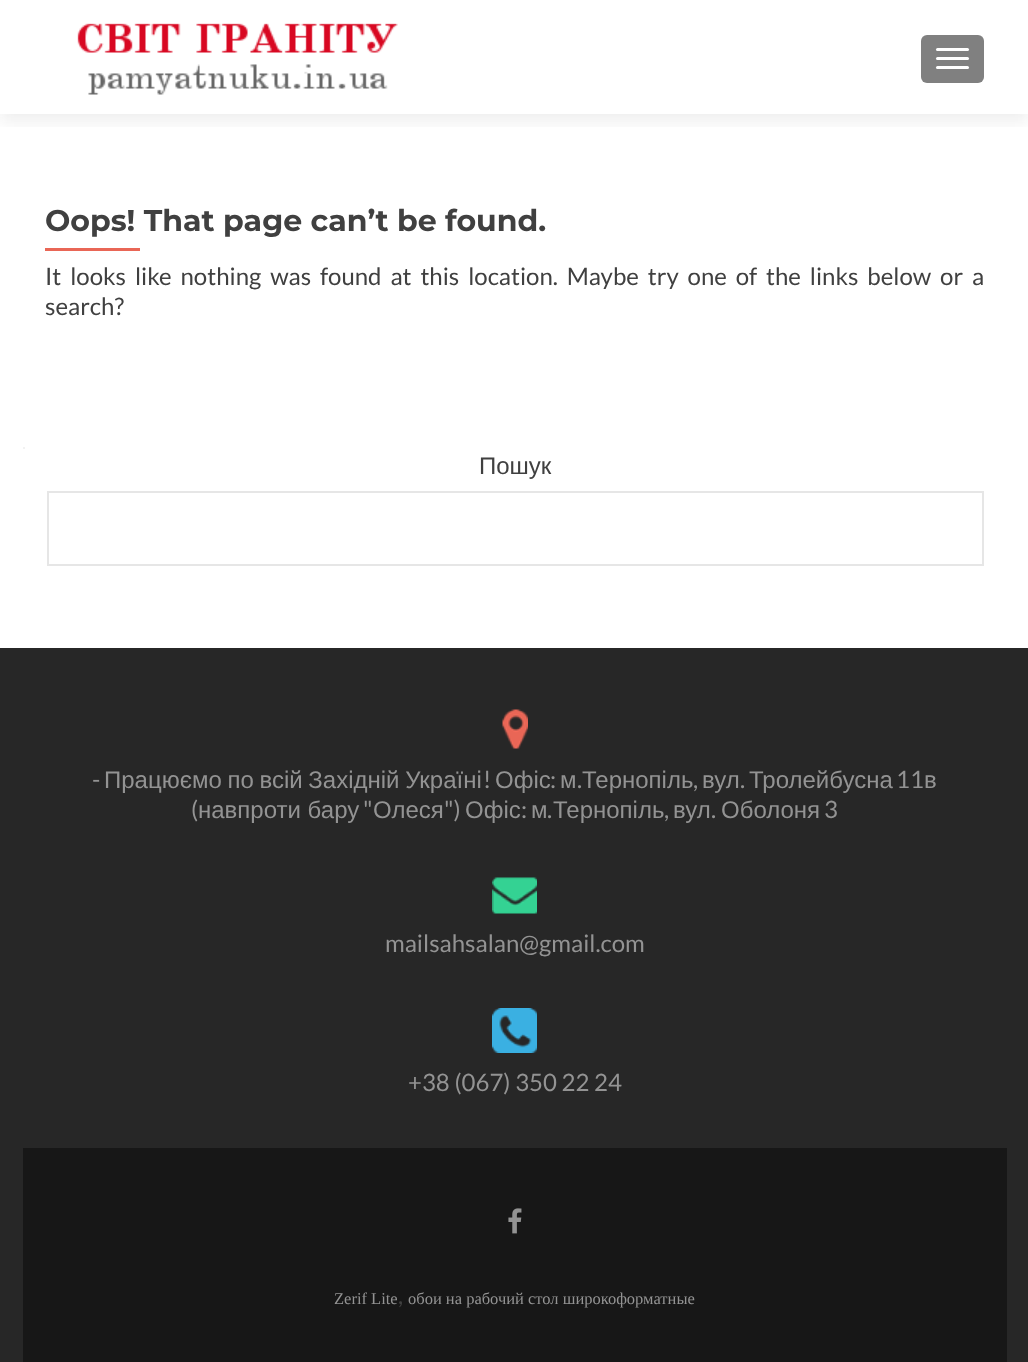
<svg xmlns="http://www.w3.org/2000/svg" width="1028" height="1362">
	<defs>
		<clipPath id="clip1"><rect x="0" y="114" width="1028" height="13" /></clipPath>
	</defs>
	<rect width="100%" height="100%" fill="#FFFFFF" />
	<g clip-path="url(#clip1)">
		<rect x="0" y="8" width="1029" height="114" fill="#323232" fill-opacity="0.08" filter="blur(8px)" />
	</g>
	<image x="77" y="23" width="321" height="72" href="assets/img1.png" />
	<rect x="921" y="35" width="63" height="48" rx="6" fill="#808080" />
	<rect x="936" y="48" width="33" height="3" rx="1.5" fill="#FFFFFF" />
	<rect x="936" y="57" width="33" height="3" rx="1.5" fill="#FFFFFF" />
	<rect x="936" y="66" width="33" height="3" rx="1.5" fill="#FFFFFF" />
	<text x="45" y="231" font-family="Montserrat" font-size="30" font-weight="100" fill="#404040">Oops! That page can’t be found.</text>
	<rect x="45" y="248" width="95" height="3" fill="#E96656" />
	<g font-family="Lato" font-size="24" fill="#404040">
		<text x="45" y="285" word-spacing="4.25">It looks like nothing was found at this location. Maybe try one of the links below or a</text>
		<text x="45" y="315">search?</text>
	</g>
	<rect x="23" y="447" width="2" height="2" fill="#F2F2F2" />
	<text x="479" y="474" font-family="Liberation Sans" font-size="24" fill="#404040">Пошук</text>
	<rect x="48" y="492" width="935" height="73" fill="none" stroke="#E6E6E6" stroke-width="2" />
	<rect x="0" y="648" width="1028" height="714" fill="#272727" />
	<image x="502" y="709" width="26" height="40" href="assets/img2.png" />
	<text x="92" y="788" font-family="Lato" font-size="24" fill="#939393">-</text>
	<text x="104" y="788" word-spacing="-1" font-family="Liberation Sans" font-size="24" fill="#939393">Працюємо по всій Західній Україні</text>
	<text x="483" y="788" font-family="Lato" font-size="24" fill="#939393">!</text>
	<text x="495" y="788" font-family="Liberation Sans" font-size="24" fill="#939393">Офіс</text>
	<text x="550" y="788" font-family="Lato" font-size="24" fill="#939393">:</text>
	<g font-family="Liberation Sans" font-size="24" fill="#939393">
		<text x="560" y="788">м</text>
		<text x="582" y="788">Тернопіль</text>
		<text x="702" y="788">вул</text>
		<text x="749" y="788">Тролейбусна</text>
	</g>
	<text x="896" y="788" font-family="Lato" font-size="24" fill="#939393">11</text>
	<text x="924" y="788" font-family="Liberation Sans" font-size="24" fill="#939393">в</text>
	<g font-family="Lato" font-size="24" fill="#939393">
		<text x="577" y="788">.</text>
		<text x="693" y="788">,</text>
		<text x="740" y="788">.</text>
		<text x="191" y="818">(</text>
	</g>
	<text x="198" y="818" font-family="Liberation Sans" font-size="24" fill="#939393">навпроти бару</text>
	<text x="363" y="818" font-family="Lato" font-size="24" fill="#939393">"</text>
	<text x="373" y="818" font-family="Liberation Sans" font-size="24" fill="#939393">Олеся</text>
	<text x="444" y="818" font-family="Lato" font-size="24" fill="#939393">")</text>
	<text x="465" y="818" font-family="Liberation Sans" font-size="24" fill="#939393">Офіс</text>
	<text x="521" y="818" font-family="Lato" font-size="24" fill="#939393">:</text>
	<text x="531" y="818" font-family="Liberation Sans" font-size="24" fill="#939393">м</text>
	<text x="547" y="818" font-family="Lato" font-size="24" fill="#939393">.</text>
	<text x="553" y="818" font-family="Liberation Sans" font-size="24" fill="#939393">Тернопіль</text>
	<text x="664" y="818" font-family="Lato" font-size="24" fill="#939393">,</text>
	<text x="673" y="818" font-family="Liberation Sans" font-size="24" fill="#939393">вул</text>
	<text x="711" y="818" font-family="Lato" font-size="24" fill="#939393">.</text>
	<text x="721" y="818" font-family="Liberation Sans" font-size="24" fill="#939393">Оболоня</text>
	<text x="824" y="818" font-family="Lato" font-size="24" fill="#939393">3</text>
	<image x="492" y="877" width="45" height="37" href="assets/img3.png" />
	<text x="385" y="952" font-family="Lato" font-size="24" fill="#939393">mailsahsalan@gmail.com</text>
	<image x="492" y="1008" width="45" height="45" href="assets/img4.png" />
	<text x="408" y="1091" font-family="Lato" font-size="24" fill="#939393">+38 (067) 350 22 24</text>
	<rect x="23" y="1148" width="984" height="214" fill="#171717" />
	<image x="508" y="1208" width="14" height="26" href="assets/img5.png" />
	<text x="334" y="1304" font-family="Liberation Serif" font-size="16.5" fill="#939393">Zerif Lite</text>
	<text x="398" y="1304" font-family="Lato" font-size="24" fill="#404040">,</text>
	<text x="408" y="1304" font-family="Liberation Serif" font-size="16.5" fill="#939393">обои на рабочий стол широкоформатные</text>
</svg>
